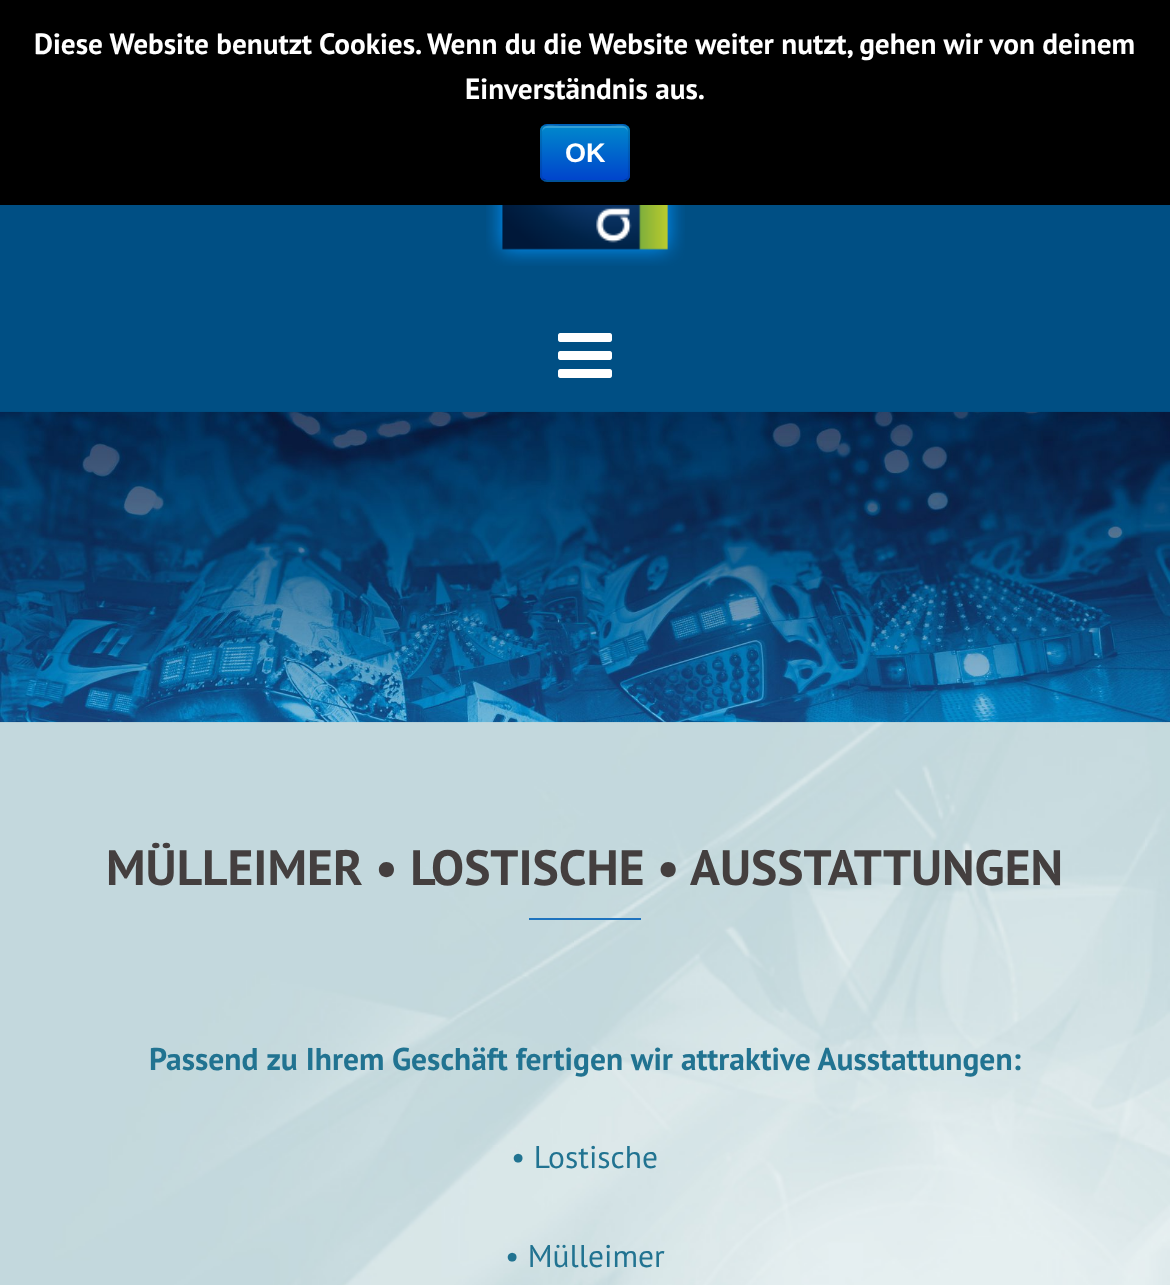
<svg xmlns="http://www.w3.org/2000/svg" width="1170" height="1285">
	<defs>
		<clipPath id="clip1"><rect x="540" y="124" width="90" height="58" rx="7" /></clipPath>
		<linearGradient id="g1" gradientUnits="userSpaceOnUse" x1="585" y1="126" x2="585" y2="180"><stop offset="0" stop-color="#0088CC" /><stop offset="1" stop-color="#0044CC" /></linearGradient>
	</defs>
	<rect width="100%" height="100%" fill="#FFFFFF" />
	<image x="0" y="722" width="1170" height="563" href="assets/img1.png" />
	<rect x="0" y="0" width="1170" height="205" fill="#000000" />
	<g font-family="PT Sans" font-size="29.25" font-weight="700" fill="#FFFFFF">
		<text x="34" y="54">Diese Website benutzt Cookies. Wenn du die Website weiter nutzt, gehen wir von deinem</text>
		<text x="465" y="99">Einverständnis aus.</text>
	</g>
	<rect x="540" y="124" width="90" height="58" rx="7" fill="#006DCC" />
	<g clip-path="url(#clip1)">
		<rect x="540" y="126" width="90" height="54" fill="url(#g1)" />
	</g>
	<path d="M547 128H623C626 128 628 130 628 133C628 123 619 126 610 126H560C551 126 542 123 542 133C542 130 544 128 547 128Z" fill="#339FD6" />
	<path d="M627 179.5L624 181H546L543 179.5" fill="none" stroke="#000000" stroke-opacity="0.25" stroke-width="2.2" />
	<path d="M543 179.5C541.5 178.5 541 177 541 175.5V130.5C541 129 541.5 127.5 543 126.5C544 125.5 545.5 125 547 125H623C624.5 125 626 125.5 627 126.5C628.5 127.5 629 129 629 130.5V175.5C629 177 628.5 178.5 627 179.5" fill="none" stroke="#000000" stroke-opacity="0.1" stroke-width="2.2" />
	<text x="565" y="162" font-family="Liberation Sans" font-size="27" font-weight="700" fill="#FFFFFF">OK</text>
	<rect x="0" y="205" width="1170" height="207" fill="#004F84" />
	<image x="486" y="205" width="199" height="61" href="assets/img2.png" />
	<image x="558" y="333" width="54" height="45" href="assets/img3.png" />
	<image x="0" y="411" width="1170" height="312" href="assets/img4.png" />
	<text x="106" y="885" font-family="PT Sans" font-size="49.5" font-weight="700" fill="#443F3F">MÜLLEIMER • LOSTISCHE • AUSSTATTUNGEN</text>
	<rect x="529" y="918" width="112" height="2" fill="#1E73BE" />
	<text x="149" y="1070" font-family="PT Sans" font-size="31.5" font-weight="700" fill="#217391">Passend zu Ihrem Geschäft fertigen wir attraktive Ausstattungen:</text>
	<g font-family="PT Sans" font-size="31.5" fill="#217391">
		<text x="511" y="1168">• Lostische</text>
		<text x="505" y="1267">• Mülleimer</text>
	</g>
</svg>
